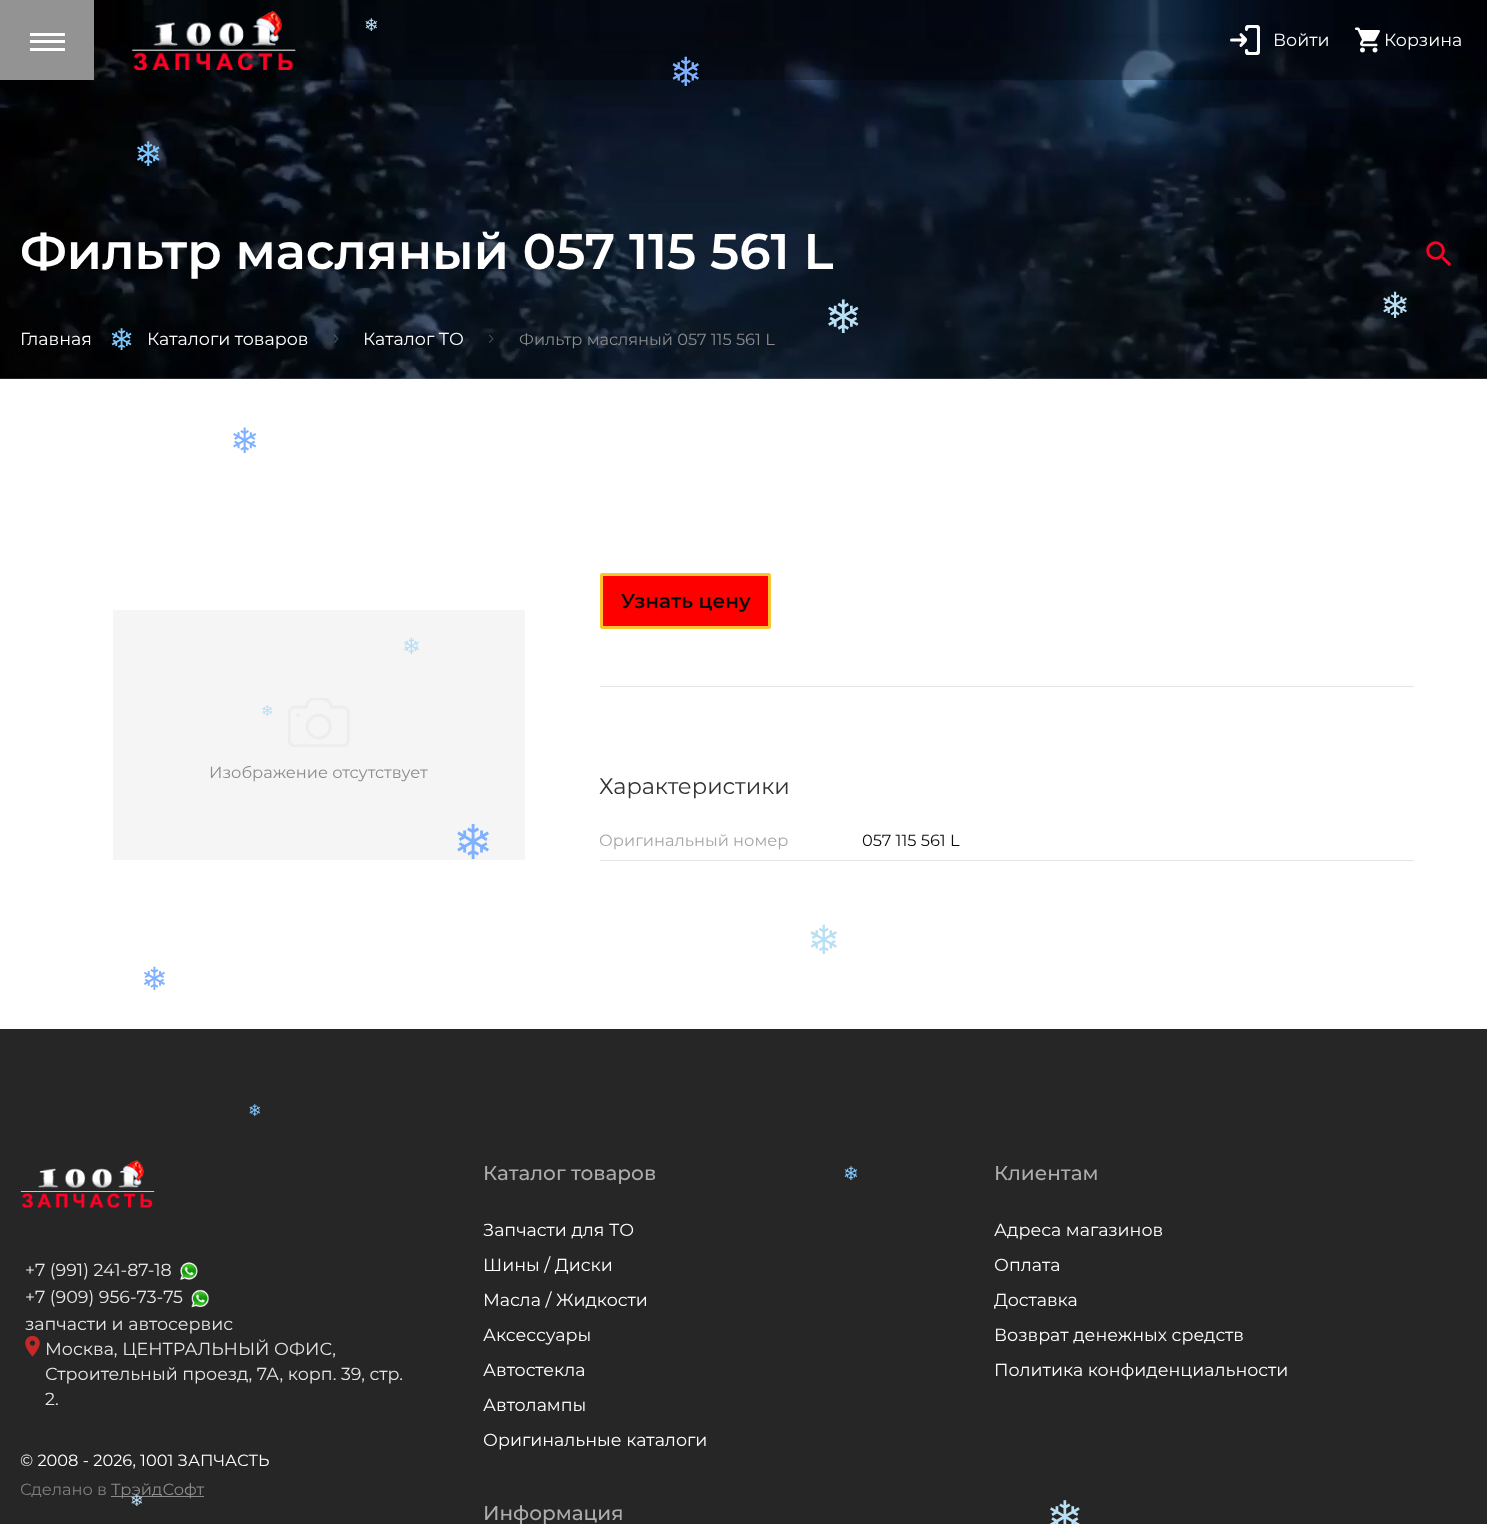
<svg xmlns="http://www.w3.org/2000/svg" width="1487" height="1524">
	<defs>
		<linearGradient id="g1" gradientUnits="userSpaceOnUse" x1="744" y1="379" x2="744" y2="0"><stop offset="0" stop-color="#000000" stop-opacity="0.25" /><stop offset="1" stop-color="#000000" stop-opacity="0" /></linearGradient>
	</defs>
	<rect width="100%" height="100%" fill="#FFFFFF" />
	<image x="0" y="0" width="1487" height="379" href="assets/img1.png" />
	<rect x="0" y="33" width="1487" height="346" fill="url(#g1)" />
	<rect x="0" y="33" width="1487" height="346" fill="url(#g1)" />
	<rect x="94" y="0" width="1393" height="80" fill="#000000" fill-opacity="0.29" />
	<text x="364" y="31" font-family="DejaVu Sans" font-size="17.5" fill="#B9DFF5">❄</text>
	<rect x="0" y="0" width="94" height="80" fill="#939393" />
	<rect x="30" y="40" width="35" height="3" fill="#FFFFFF" />
	<rect x="30" y="33" width="35" height="3" fill="#FFFFFF" />
	<rect x="30" y="48" width="35" height="3" fill="#FFFFFF" />
	<image x="132" y="10" width="164" height="60" href="assets/img2.png" />
	<image x="1230" y="25" width="30" height="30" href="assets/img3.png" />
	<text x="1273" y="46" font-family="Montserrat" font-size="17.5" fill="#FFFFFF">Войти</text>
	<image x="1355" y="27" width="25" height="26" href="assets/img4.png" />
	<text x="1384" y="46" font-family="Montserrat" font-size="17.5" fill="#FFFFFF">Корзина</text>
	<text x="20" y="269" font-family="Montserrat" font-size="50" font-weight="600" fill="#FFFFFF">Фильтр масляный 057 115 561 L</text>
	<image x="1426" y="241" width="26" height="26" href="assets/img5.png" />
	<text x="20" y="345" font-family="Montserrat" font-size="17.5" fill="#FFFFFF">Главная</text>
	<image x="116" y="334" width="5" height="9" href="assets/img6.png" />
	<text x="147" y="345" font-family="Montserrat" font-size="17.5" fill="#FFFFFF">Каталоги товаров</text>
	<image x="334" y="334" width="5" height="9" href="assets/img7.png" />
	<text x="363" y="345" font-family="Montserrat" font-size="17.5" fill="#FFFFFF">Каталог ТО</text>
	<image x="489" y="334" width="5" height="9" href="assets/img8.png" />
	<text x="519" y="345" font-family="Montserrat" font-size="16.25" fill="#8C8C8C">Фильтр масляный 057 115 561 L</text>
	<rect x="113" y="610" width="412" height="250" fill="#F5F5F5" />
	<image x="288" y="698" width="62" height="49" href="assets/img9.png" />
	<text x="209" y="778" font-family="Montserrat" font-size="16.25" fill="#8C8C8C">Изображение отсутствует</text>
	<rect x="600" y="686" width="814" height="1" fill="#E5E5E5" />
	<rect x="601.5" y="574.5" width="168" height="53" rx="1" fill="#FF0000" stroke="#FFC32D" stroke-width="3" />
	<text x="621" y="608" font-family="Montserrat" font-size="20" font-weight="600" fill="#0D0D0D">Узнать цену</text>
	<text x="599" y="794" font-family="Montserrat" font-size="22.5" fill="#333333">Характеристики</text>
	<rect x="600" y="860" width="814" height="1" fill="#E5E5E5" />
	<text x="599" y="846" font-family="Montserrat" font-size="16.25" fill="#A6A6A6">Оригинальный номер</text>
	<text x="862" y="846" font-family="Montserrat" font-size="16.25" fill="#0D0D0D">057 115 561 L</text>
	<rect x="0" y="1029" width="1487" height="495" fill="#262626" />
	<image x="20" y="1160" width="135" height="48" href="assets/img10.png" />
	<text x="25" y="1276" font-family="Montserrat" font-size="17.5" fill="#E5E5E5">+7 (991) 241-87-18</text>
	<image x="180" y="1262" width="18" height="19" href="assets/img11.png" />
	<text x="25" y="1303" font-family="Montserrat" font-size="17.5" fill="#E5E5E5">+7 (909) 956-73-75</text>
	<image x="191" y="1289" width="18" height="19" href="assets/img12.png" />
	<text x="25" y="1330" font-family="Montserrat" font-size="17.5" fill="#E5E5E5">запчасти и автосервис</text>
	<image x="25" y="1336" width="15" height="21" href="assets/img13.png" />
	<g font-family="Montserrat" font-size="17.5" fill="#E5E5E5">
		<text x="45" y="1355">Москва, ЦЕНТРАЛЬНЫЙ ОФИС,</text>
		<text x="45" y="1380">Строительный проезд, 7А, корп. 39, стр.</text>
		<text x="45" y="1405">2.</text>
	</g>
	<text x="20" y="1466" font-family="Montserrat" font-size="16.25" fill="#FFFFFF">© 2008 - 2026, 1001 ЗАПЧАСТЬ</text>
	<text x="20" y="1495" font-family="Montserrat" font-size="16.25" fill="#7F7F7F">Сделано в</text>
	<rect x="111" y="1496" width="93" height="1" fill="#8C8C8C" />
	<text x="111" y="1495" font-family="Montserrat" font-size="16.25" fill="#8C8C8C">ТрэйдСофт</text>
	<text x="483" y="1180" font-family="Montserrat" font-size="20" font-weight="500" fill="#ADADAD">Каталог товаров</text>
	<g font-family="Montserrat" font-size="17.5" fill="#FFFFFF">
		<text x="483" y="1236">Запчасти для ТО</text>
		<text x="483" y="1271">Шины / Диски</text>
		<text x="483" y="1306">Масла / Жидкости</text>
		<text x="483" y="1341">Аксессуары</text>
		<text x="483" y="1376">Автостекла</text>
		<text x="483" y="1411">Автолампы</text>
		<text x="483" y="1446">Оригинальные каталоги</text>
	</g>
	<text x="994" y="1180" font-family="Montserrat" font-size="20" font-weight="500" fill="#ADADAD">Клиентам</text>
	<g font-family="Montserrat" font-size="17.5" fill="#FFFFFF">
		<text x="994" y="1236">Адреса магазинов</text>
		<text x="994" y="1271">Оплата</text>
		<text x="994" y="1306">Доставка</text>
		<text x="994" y="1341">Возврат денежных средств</text>
		<text x="994" y="1376">Политика конфиденциальности</text>
	</g>
	<text x="483" y="1520" font-family="Montserrat" font-size="20" font-weight="500" fill="#ADADAD">Информация</text>
	<text x="669" y="86" font-family="DejaVu Sans" font-size="40" fill="#7FB1FF">❄</text>
	<text x="134" y="166" font-family="DejaVu Sans" font-size="34" fill="#7FC7FF">❄</text>
	<text x="824" y="333" font-family="DejaVu Sans" font-size="46" fill="#B9DFF5">❄</text>
	<text x="1380" y="318" font-family="DejaVu Sans" font-size="36" fill="#B9DFF5">❄</text>
	<text x="109" y="350" font-family="DejaVu Sans" font-size="30" fill="#7FC7FF">❄</text>
	<text x="230" y="453" font-family="DejaVu Sans" font-size="35" fill="#7FB1FF">❄</text>
	<text x="402" y="654" font-family="DejaVu Sans" font-size="22.5" fill="#B9DFF5">❄</text>
	<text x="261" y="716" font-family="DejaVu Sans" font-size="15" fill="#B9DFF5">❄</text>
	<text x="453" y="859" font-family="DejaVu Sans" font-size="48" fill="#7FB1FF">❄</text>
	<text x="807" y="954" font-family="DejaVu Sans" font-size="40" fill="#B9DFF5">❄</text>
	<text x="141" y="990" font-family="DejaVu Sans" font-size="32" fill="#7FB1FF">❄</text>
	<text x="248" y="1116" font-family="DejaVu Sans" font-size="16.25" fill="#7FC7FF">❄</text>
	<text x="843" y="1180" font-family="DejaVu Sans" font-size="19" fill="#7FC7FF">❄</text>
	<text x="130" y="1506" font-family="DejaVu Sans" font-size="16.25" fill="#B9DFF5">❄</text>
	<text x="1046" y="1533" font-family="DejaVu Sans" font-size="45" fill="#B9DFF5">❄</text>
</svg>
